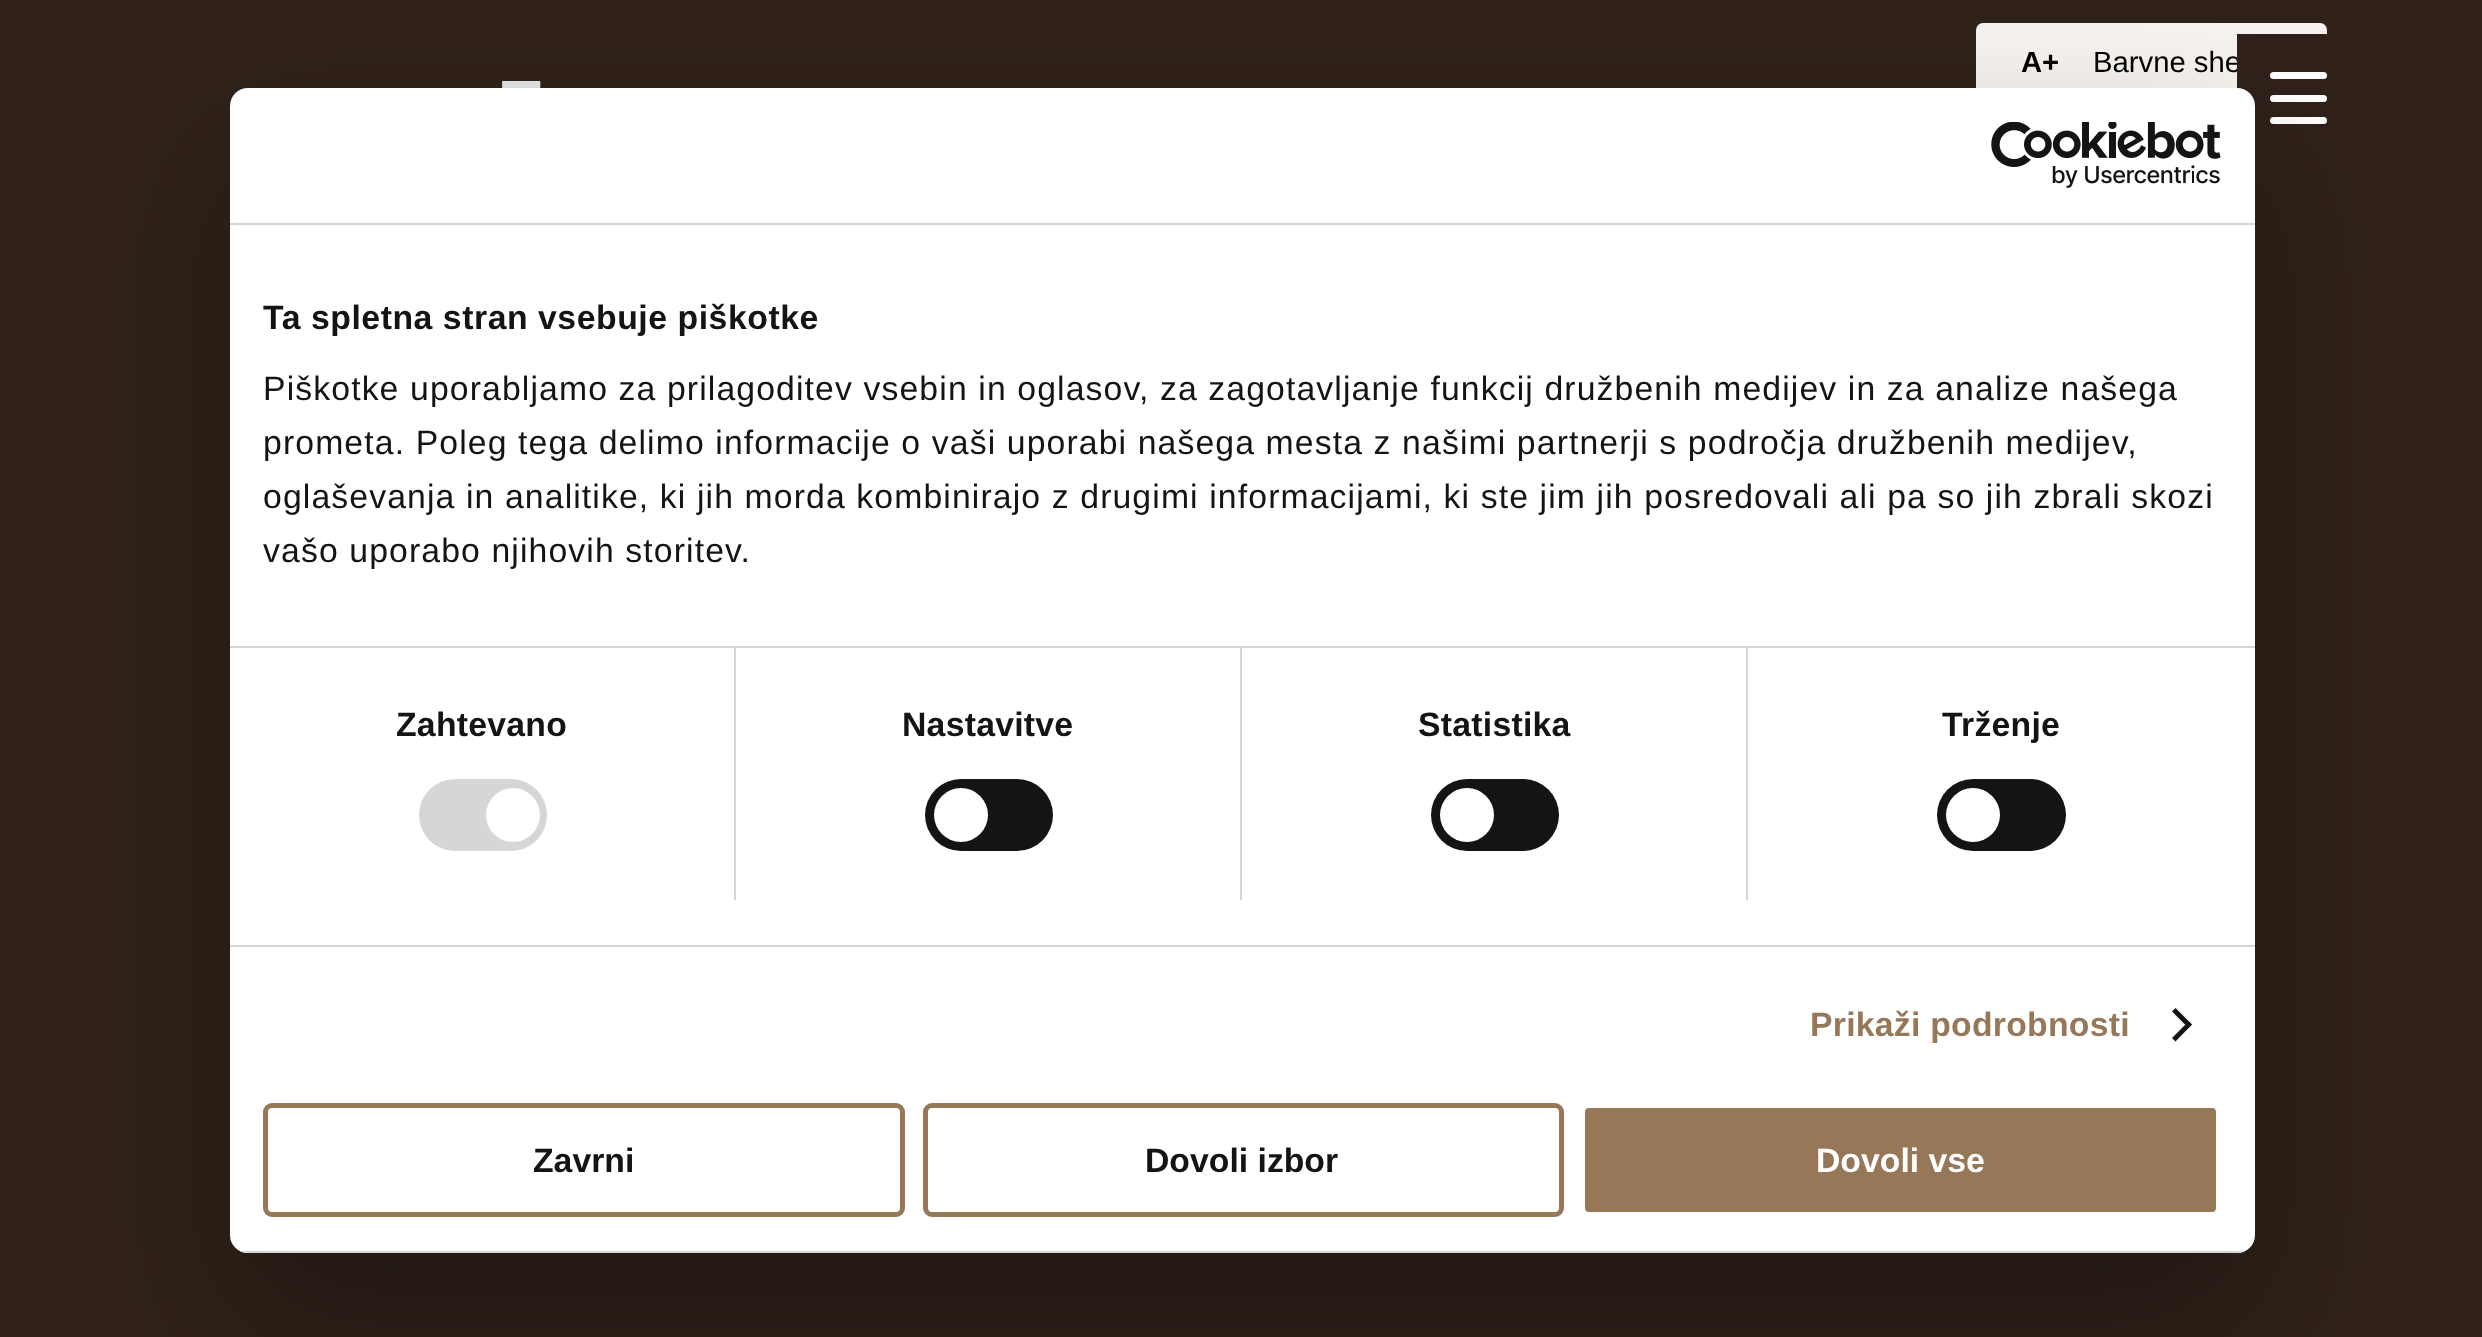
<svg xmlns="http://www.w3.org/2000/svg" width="2482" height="1337">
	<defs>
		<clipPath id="clip1"><rect x="230" y="88" width="2025" height="1165" rx="18" /></clipPath>
	</defs>
	<rect width="100%" height="100%" fill="#30221A" />
	<rect x="1976" y="23" width="351" height="78" rx="7" fill="#F7F4F0" />
	<text x="2021" y="72" font-family="Liberation Sans" font-size="29.25" font-weight="700" fill="#000000">A+</text>
	<text x="2093" y="72" font-family="Liberation Sans" font-size="29.25" fill="#000000">Barvne she</text>
	<image x="502" y="81" width="39" height="7" href="assets/img1.png" />
	<rect x="2237" y="34" width="90" height="67" fill="#30221A" />
	<rect x="2270" y="95" width="57" height="7" rx="3.5" fill="#FFFFFF" />
	<rect x="2270" y="72" width="57" height="7" rx="3.5" fill="#FFFFFF" />
	<rect x="2270" y="117" width="57" height="7" rx="3.5" fill="#FFFFFF" />
	<rect x="230" y="160" width="2025" height="1165" rx="18" fill="#000000" fill-opacity="0.3" filter="blur(76.5px)" />
	<rect x="230" y="88" width="2025" height="1165" rx="18" fill="#FFFFFF" />
	<rect x="230" y="223" width="2025" height="2" fill="#D6D6D6" />
	<image x="1991" y="122" width="230" height="66" href="assets/img2.png" />
	<rect x="230" y="646" width="2025" height="2" fill="#D6D6D6" />
	<text x="263" y="329" font-family="Liberation Sans" font-size="33.75" font-weight="700" letter-spacing="0.55" fill="#141414">Ta spletna stran vsebuje piškotke</text>
	<g font-family="Liberation Sans" font-size="33.75" letter-spacing="1.12" fill="#141414">
		<text x="263" y="400">Piškotke uporabljamo za prilagoditev vsebin in oglasov, za zagotavljanje funkcij družbenih medijev in za analize našega</text>
		<text x="263" y="454">prometa. Poleg tega delimo informacije o vaši uporabi našega mesta z našimi partnerji s področja družbenih medijev,</text>
		<text x="263" y="508">oglaševanja in analitike, ki jih morda kombinirajo z drugimi informacijami, ki ste jim jih posredovali ali pa so jih zbrali skozi</text>
		<text x="263" y="562">vašo uporabo njihovih storitev.</text>
	</g>
	<rect x="230" y="945" width="2025" height="2" fill="#D6D6D6" />
	<rect x="734" y="648" width="2" height="252" fill="#D6D6D6" />
	<text x="396" y="736" font-family="Liberation Sans" font-size="33.75" font-weight="700" letter-spacing="0.25" fill="#141414">Zahtevano</text>
	<rect x="419" y="779" width="128" height="72" rx="36" fill="#D6D6D6" />
	<circle cx="513" cy="815" r="27" fill="#FFFFFF" />
	<rect x="1240" y="648" width="2" height="252" fill="#D6D6D6" />
	<text x="902" y="736" font-family="Liberation Sans" font-size="33.75" font-weight="700" letter-spacing="0.25" fill="#141414">Nastavitve</text>
	<rect x="925" y="779" width="128" height="72" rx="36" fill="#141414" />
	<circle cx="961" cy="815" r="27" fill="#FFFFFF" />
	<rect x="1746" y="648" width="2" height="252" fill="#D6D6D6" />
	<text x="1418" y="736" font-family="Liberation Sans" font-size="33.75" font-weight="700" letter-spacing="0.25" fill="#141414">Statistika</text>
	<rect x="1431" y="779" width="128" height="72" rx="36" fill="#141414" />
	<circle cx="1467" cy="815" r="27" fill="#FFFFFF" />
	<text x="1942" y="736" font-family="Liberation Sans" font-size="33.75" font-weight="700" letter-spacing="0.25" fill="#141414">Trženje</text>
	<rect x="1937" y="779" width="129" height="72" rx="36" fill="#141414" />
	<circle cx="1973" cy="815" r="27" fill="#FFFFFF" />
	<text x="1810" y="1036" font-family="Liberation Sans" font-size="33.75" font-weight="700" letter-spacing="0.25" fill="#967859">Prikaži podrobnosti</text>
	<path d="M2175.5 1008L2192 1024.5L2188.5 1028L2172 1011.5Z" fill="#141414" />
	<path d="M2188.5 1021.5L2192 1024.5L2175.5 1041.5L2172 1038Z" fill="#141414" />
	<g clip-path="url(#clip1)">
		<rect x="240" y="1251" width="2005" height="2" fill="#D6D6D6" />
	</g>
	<rect x="265.5" y="1105.5" width="637" height="109" rx="6.5" fill="none" stroke="#967859" stroke-width="5" />
	<text x="533" y="1172" font-family="Liberation Sans" font-size="33.75" font-weight="700" fill="#141414">Zavrni</text>
	<rect x="925.5" y="1105.5" width="636" height="109" rx="6.5" fill="none" stroke="#967859" stroke-width="5" />
	<text x="1145" y="1172" font-family="Liberation Sans" font-size="33.75" font-weight="700" fill="#141414">Dovoli izbor</text>
	<rect x="1582.5" y="1105.5" width="636" height="109" rx="6.5" fill="#967859" stroke="#FFFFFF" stroke-width="5" />
	<text x="1816" y="1172" font-family="Liberation Sans" font-size="33.75" font-weight="700" fill="#FFFFFF">Dovoli vse</text>
</svg>
